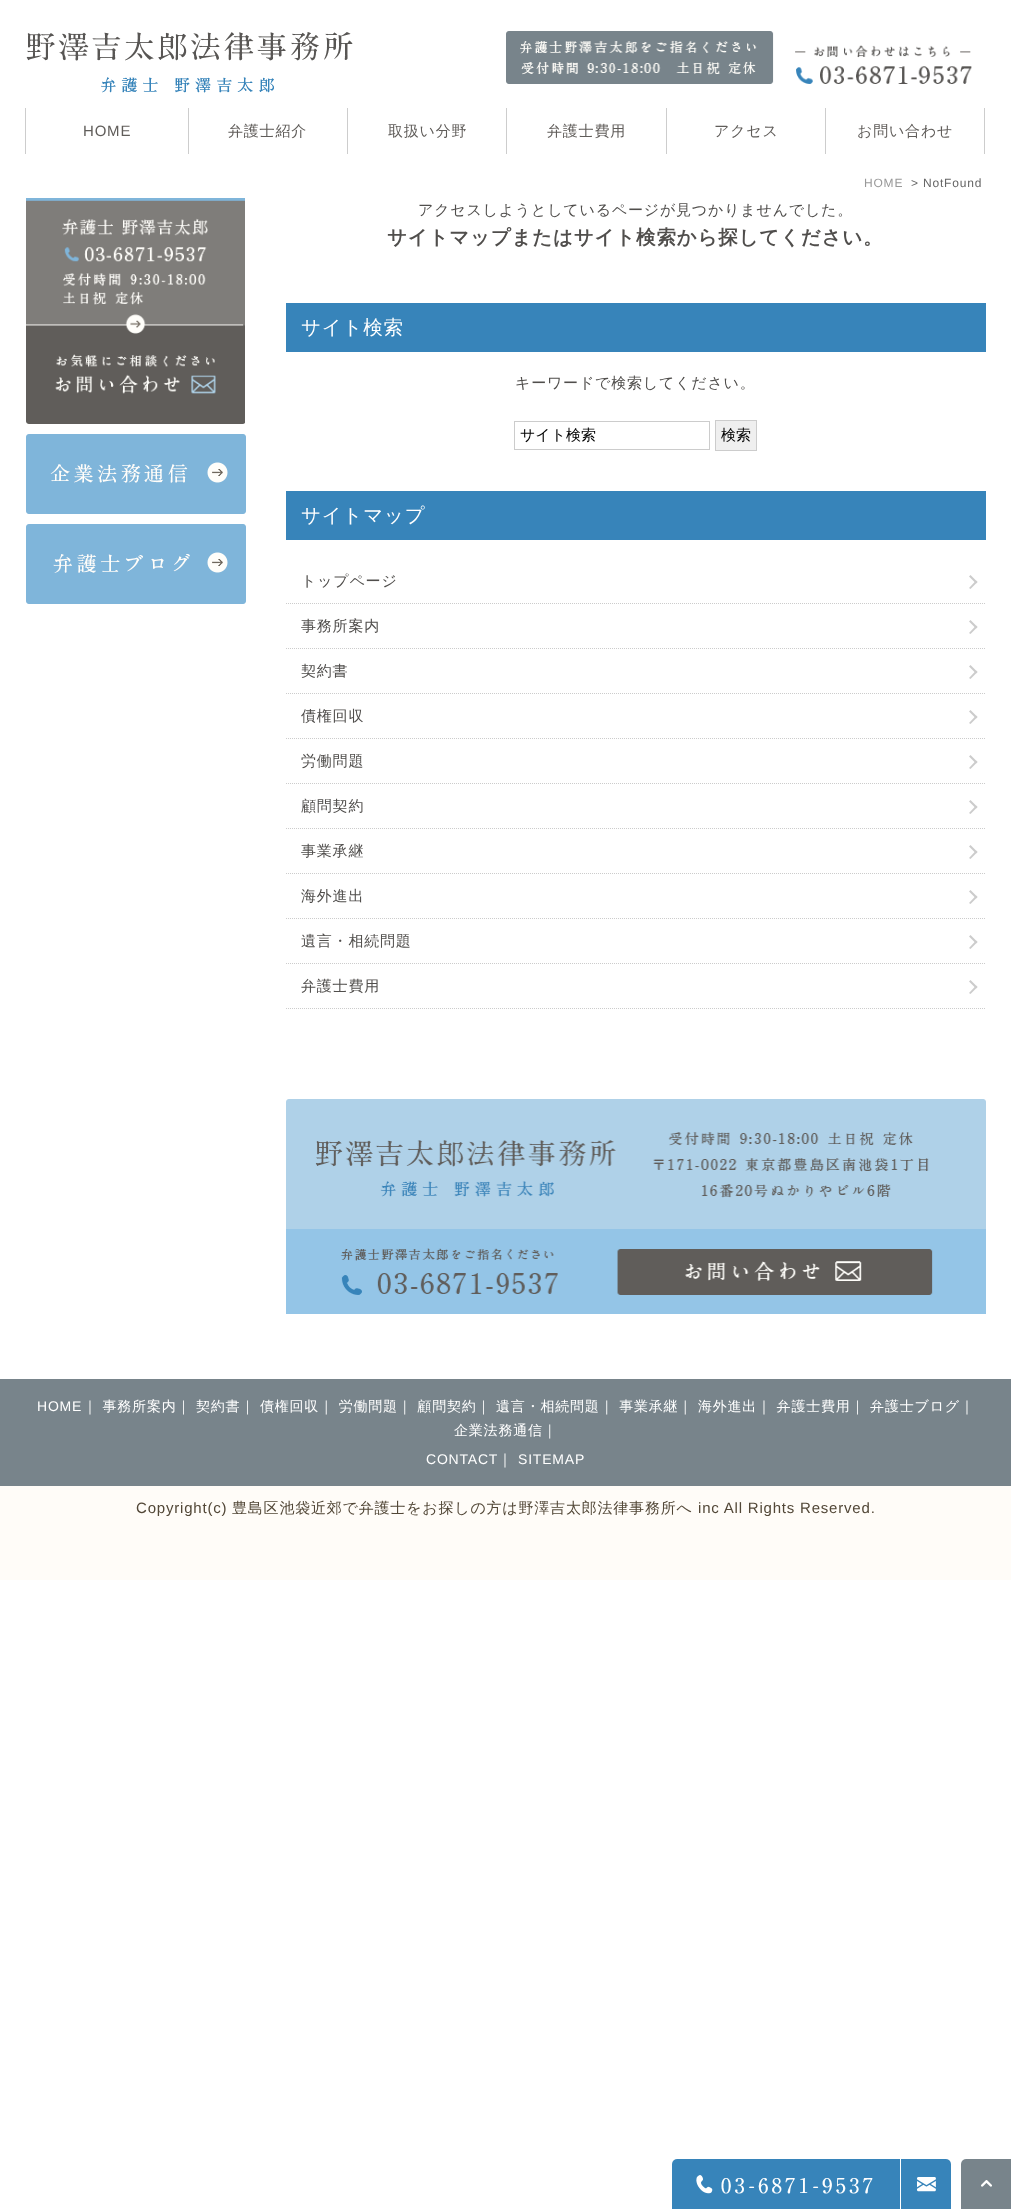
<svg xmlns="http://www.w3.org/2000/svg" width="1011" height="2209">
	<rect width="100%" height="100%" fill="#FFFFFF" />
	<image x="26" y="32" width="327" height="61" href="assets/img1.png" />
	<image x="506" y="31" width="268" height="53" href="assets/img2.png" />
	<image x="795" y="45" width="177" height="39" href="assets/img3.png" />
	<rect x="188" y="108" width="1" height="46" fill="#CDCDCD" />
	<rect x="25" y="108" width="1" height="46" fill="#CDCDCD" />
	<text x="83" y="136" font-family="Liberation Sans" font-size="15" letter-spacing="0.8" fill="#605D5A">HOME</text>
	<rect x="347" y="108" width="1" height="46" fill="#CDCDCD" />
	<text x="228" y="136" font-family="WenQuanYi Zen Hei" font-size="15" font-weight="500" letter-spacing="0.8" fill="#605D5A">弁護士紹介</text>
	<rect x="506" y="108" width="1" height="46" fill="#CDCDCD" />
	<text x="388" y="136" font-family="WenQuanYi Zen Hei" font-size="15" font-weight="500" letter-spacing="0.8" fill="#605D5A">取扱い分野</text>
	<rect x="666" y="108" width="1" height="46" fill="#CDCDCD" />
	<text x="547" y="136" font-family="WenQuanYi Zen Hei" font-size="15" font-weight="500" letter-spacing="0.8" fill="#605D5A">弁護士費用</text>
	<rect x="825" y="108" width="1" height="46" fill="#CDCDCD" />
	<text x="714" y="136" font-family="WenQuanYi Zen Hei" font-size="15" font-weight="500" letter-spacing="0.8" fill="#605D5A">アクセス</text>
	<rect x="984" y="108" width="1" height="46" fill="#CDCDCD" />
	<text x="857" y="136" font-family="WenQuanYi Zen Hei" font-size="15" font-weight="500" letter-spacing="0.8" fill="#605D5A">お問い合わせ</text>
	<text x="864" y="187" font-family="Liberation Sans" font-size="12" letter-spacing="0.8" fill="#999999">HOME</text>
	<g font-family="Liberation Sans" font-size="12" letter-spacing="0.8" fill="#666666">
		<text x="911" y="187">&gt;</text>
		<text x="923" y="187">NotFound</text>
	</g>
	<image x="26" y="198" width="219" height="226" href="assets/img4.png" />
	<image x="26" y="434" width="220" height="80" href="assets/img5.png" />
	<image x="26" y="524" width="220" height="80" href="assets/img6.png" />
	<text x="418" y="215" font-family="WenQuanYi Zen Hei" font-size="15" font-weight="500" letter-spacing="0.8" fill="#504E4C">アクセスしようとしているページが見つかりませんでした。</text>
	<text x="387" y="244" font-family="WenQuanYi Zen Hei" font-size="19.5" font-weight="700" letter-spacing="0.8" fill="#504E4C">サイトマップまたはサイト検索から探してください。</text>
	<rect x="286" y="303" width="700" height="49" fill="#3784BA" />
	<text x="301" y="334" font-family="WenQuanYi Zen Hei" font-size="19.5" font-weight="500" letter-spacing="0.8" fill="#FFFFFF">サイト検索</text>
	<text x="515" y="388" font-family="WenQuanYi Zen Hei" font-size="15" font-weight="500" letter-spacing="0.8" fill="#504E4C">キーワードで検索してください。</text>
	<rect x="514.5" y="421.5" width="195" height="28" fill="none" stroke="#CCCCCC" />
	<text x="520" y="440" font-family="WenQuanYi Zen Hei" font-size="15" font-weight="500" fill="#000000">サイト検索</text>
	<rect x="715.5" y="420.5" width="41" height="30" fill="#EFEFEF" stroke="#CCCCCC" />
	<text x="721" y="440" font-family="WenQuanYi Zen Hei" font-size="15" font-weight="500" fill="#000000">検索</text>
	<rect x="286" y="491" width="700" height="49" fill="#3784BA" />
	<text x="301" y="522" font-family="WenQuanYi Zen Hei" font-size="19.5" font-weight="500" letter-spacing="0.8" fill="#FFFFFF">サイトマップ</text>
	<path d="M286 603.5H986" fill="none" stroke="#CCCCCC" stroke-dasharray="1 1" />
	<text x="301" y="586" font-family="WenQuanYi Zen Hei" font-size="15" font-weight="500" letter-spacing="0.8" fill="#504E4C">トップページ</text>
	<path d="M970.5 575L977.5 582L976 583.5L969 576.5Z" fill="#CCCCCC" />
	<path d="M976 580.5L977.5 582L970.5 589L969 588Z" fill="#CCCCCC" />
	<path d="M286 648.5H986" fill="none" stroke="#CCCCCC" stroke-dasharray="1 1" />
	<text x="301" y="631" font-family="WenQuanYi Zen Hei" font-size="15" font-weight="500" letter-spacing="0.8" fill="#504E4C">事務所案内</text>
	<path d="M970.5 620L977.5 627L976 628.5L969 621.5Z" fill="#CCCCCC" />
	<path d="M976 625.5L977.5 627L970.5 634L969 633Z" fill="#CCCCCC" />
	<path d="M286 693.5H986" fill="none" stroke="#CCCCCC" stroke-dasharray="1 1" />
	<text x="301" y="676" font-family="WenQuanYi Zen Hei" font-size="15" font-weight="500" letter-spacing="0.8" fill="#504E4C">契約書</text>
	<path d="M970.5 665L977.5 672L976 673.5L969 666.5Z" fill="#CCCCCC" />
	<path d="M976 670.5L977.5 672L970.5 679L969 678Z" fill="#CCCCCC" />
	<path d="M286 738.5H986" fill="none" stroke="#CCCCCC" stroke-dasharray="1 1" />
	<text x="301" y="721" font-family="WenQuanYi Zen Hei" font-size="15" font-weight="500" letter-spacing="0.8" fill="#504E4C">債権回収</text>
	<path d="M970.5 710L977.5 717L976 718.5L969 711.5Z" fill="#CCCCCC" />
	<path d="M976 715.5L977.5 717L970.5 724L969 723Z" fill="#CCCCCC" />
	<path d="M286 783.5H986" fill="none" stroke="#CCCCCC" stroke-dasharray="1 1" />
	<text x="301" y="766" font-family="WenQuanYi Zen Hei" font-size="15" font-weight="500" letter-spacing="0.8" fill="#504E4C">労働問題</text>
	<path d="M970.5 755L977.5 762L976 763.5L969 756.5Z" fill="#CCCCCC" />
	<path d="M976 760.5L977.5 762L970.5 769L969 768Z" fill="#CCCCCC" />
	<path d="M286 828.5H986" fill="none" stroke="#CCCCCC" stroke-dasharray="1 1" />
	<text x="301" y="811" font-family="WenQuanYi Zen Hei" font-size="15" font-weight="500" letter-spacing="0.8" fill="#504E4C">顧問契約</text>
	<path d="M970.5 800L977.5 807L976 808.5L969 801.5Z" fill="#CCCCCC" />
	<path d="M976 805.5L977.5 807L970.5 814L969 813Z" fill="#CCCCCC" />
	<path d="M286 873.5H986" fill="none" stroke="#CCCCCC" stroke-dasharray="1 1" />
	<text x="301" y="856" font-family="WenQuanYi Zen Hei" font-size="15" font-weight="500" letter-spacing="0.8" fill="#504E4C">事業承継</text>
	<path d="M970.5 845L977.5 852L976 853.5L969 846.5Z" fill="#CCCCCC" />
	<path d="M976 850.5L977.5 852L970.5 859L969 858Z" fill="#CCCCCC" />
	<path d="M286 918.5H986" fill="none" stroke="#CCCCCC" stroke-dasharray="1 1" />
	<text x="301" y="901" font-family="WenQuanYi Zen Hei" font-size="15" font-weight="500" letter-spacing="0.8" fill="#504E4C">海外進出</text>
	<path d="M970.5 890L977.5 897L976 898.5L969 891.5Z" fill="#CCCCCC" />
	<path d="M976 895.5L977.5 897L970.5 904L969 903Z" fill="#CCCCCC" />
	<path d="M286 963.5H986" fill="none" stroke="#CCCCCC" stroke-dasharray="1 1" />
	<text x="301" y="946" font-family="WenQuanYi Zen Hei" font-size="15" font-weight="500" letter-spacing="0.8" fill="#504E4C">遺言・相続問題</text>
	<path d="M970.5 935L977.5 942L976 943.5L969 936.5Z" fill="#CCCCCC" />
	<path d="M976 940.5L977.5 942L970.5 949L969 948Z" fill="#CCCCCC" />
	<path d="M286 1008.5H986" fill="none" stroke="#CCCCCC" stroke-dasharray="1 1" />
	<text x="301" y="991" font-family="WenQuanYi Zen Hei" font-size="15" font-weight="500" letter-spacing="0.8" fill="#504E4C">弁護士費用</text>
	<path d="M970.5 980L977.5 987L976 988.5L969 981.5Z" fill="#CCCCCC" />
	<path d="M976 985.5L977.5 987L970.5 994L969 993Z" fill="#CCCCCC" />
	<image x="286" y="1099" width="700" height="130" href="assets/img7.png" />
	<image x="286" y="1229" width="700" height="85" href="assets/img8.png" />
	<rect x="0" y="1379" width="1011" height="107" fill="#78848B" />
	<text x="37" y="1411" font-family="Liberation Sans" font-size="14" letter-spacing="0.8" fill="#FFFFFF">HOME</text>
	<g font-family="WenQuanYi Zen Hei" font-size="14" font-weight="500" letter-spacing="0.8" fill="#FFFFFF">
		<text x="83" y="1411">｜ 事務所案内｜ 契約書｜ 債権回収｜ 労働問題｜ 顧問契約｜ 遺言・相続問題｜ 事業承継｜ 海外進出｜ 弁護士費用｜ 弁護士ブログ｜</text>
		<text x="454" y="1435">企業法務通信｜</text>
	</g>
	<text x="426" y="1464" font-family="Liberation Sans" font-size="14" letter-spacing="0.8" fill="#FFFFFF">CONTACT</text>
	<text x="498" y="1464" font-family="WenQuanYi Zen Hei" font-size="14" font-weight="500" letter-spacing="0.8" fill="#FFFFFF">｜</text>
	<text x="518" y="1464" font-family="Liberation Sans" font-size="14" letter-spacing="0.8" fill="#FFFFFF">SITEMAP</text>
	<rect x="0" y="1486" width="1011" height="94" fill="#FFFCF8" />
	<text x="136" y="1513" font-family="Liberation Sans" font-size="15" letter-spacing="0.8" fill="#524737">Copyright(c)</text>
	<text x="232" y="1513" font-family="WenQuanYi Zen Hei" font-size="15" font-weight="500" letter-spacing="0.8" fill="#524737">豊島区池袋近郊で弁護士をお探しの方は野澤吉太郎法律事務所へ</text>
	<text x="698" y="1513" font-family="Liberation Sans" font-size="15" letter-spacing="0.8" fill="#524737">inc All Rights Reserved.</text>
	<image x="672" y="2159" width="228" height="50" href="assets/img9.png" />
	<image x="901" y="2159" width="50" height="50" href="assets/img10.png" />
	<image x="961" y="2159" width="50" height="50" href="assets/img11.png" />
</svg>
